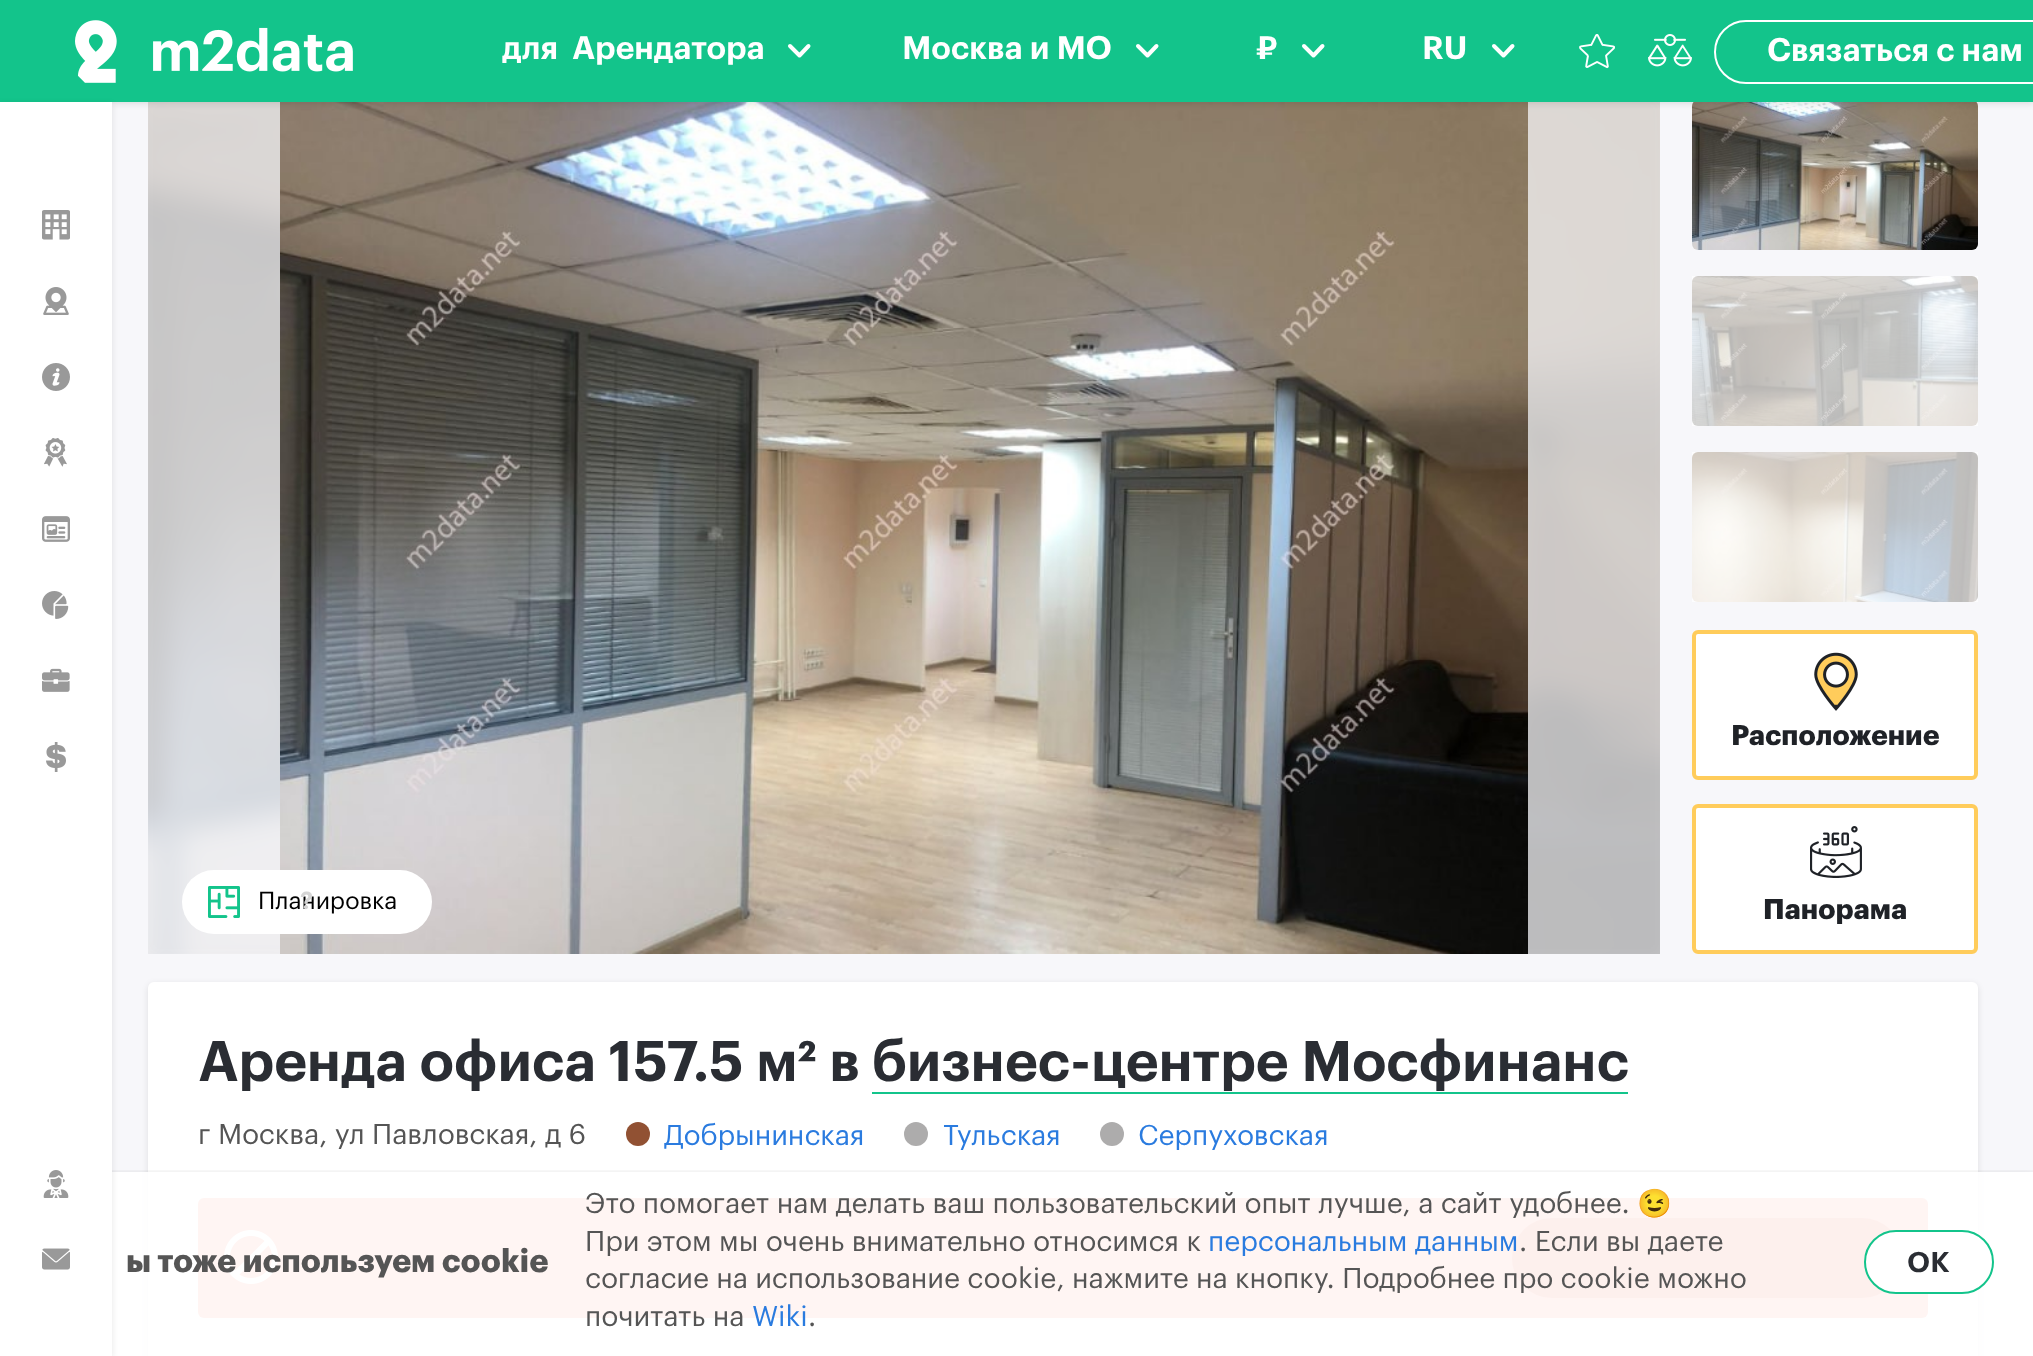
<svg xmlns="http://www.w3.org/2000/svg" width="2033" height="1356">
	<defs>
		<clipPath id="clip1"><rect x="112" y="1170" width="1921" height="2" /></clipPath>
	</defs>
	<rect width="100%" height="100%" fill="#F7F7FA" />
	<image x="148" y="102" width="1512" height="852" href="assets/img14.png" />
	<image x="280" y="102" width="1248" height="852" href="assets/img15.png" />
	<image x="1692" y="102" width="286" height="148" href="assets/img17.png" />
	<rect x="0" y="2" width="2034" height="102" fill="#000000" fill-opacity="0.1" filter="blur(3px)" />
	<rect x="0" y="0" width="2033" height="102" fill="#13C48B" />
	<image x="75" y="20" width="278" height="63" href="assets/img1.png" />
	<text x="502" y="59" font-family="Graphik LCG" font-size="32" font-weight="600" fill="#FFFFFF" xml:space="preserve">для  Арендатора</text>
	<path d="M790 46L799.5 55.5L808.5 46" fill="none" stroke="#FFFFFF" stroke-width="4" stroke-linecap="round" stroke-linejoin="round" />
	<text x="902" y="59" font-family="Graphik LCG" font-size="32" font-weight="600" fill="#FFFFFF">Москва и МО</text>
	<path d="M1138 46L1147.5 55.5L1156.5 46" fill="none" stroke="#FFFFFF" stroke-width="4" stroke-linecap="round" stroke-linejoin="round" />
	<text x="1256" y="59" font-family="Graphik LCG" font-size="32" font-weight="600" fill="#FFFFFF">₽</text>
	<path d="M1304 46L1313.5 55.5L1322.5 46" fill="none" stroke="#FFFFFF" stroke-width="4" stroke-linecap="round" stroke-linejoin="round" />
	<text x="1422" y="59" font-family="Graphik LCG" font-size="32" font-weight="600" fill="#FFFFFF">RU</text>
	<path d="M1494 46L1503.5 55.5L1512.5 46" fill="none" stroke="#FFFFFF" stroke-width="4" stroke-linecap="round" stroke-linejoin="round" />
	<image x="1579" y="34" width="36" height="35" href="assets/img2.png" />
	<image x="1648" y="34" width="44" height="33" href="assets/img3.png" />
	<rect x="1715" y="21" width="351" height="62" rx="31" fill="none" stroke="#FFFFFF" stroke-width="2" />
	<text x="1767" y="61" font-family="Graphik LCG" font-size="32" font-weight="600" fill="#FFFFFF">Связаться с нам</text>
	<rect x="148" y="984" width="1830" height="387" rx="6" fill="#000000" fill-opacity="0.1" filter="blur(3px)" />
	<rect x="148" y="982" width="1830" height="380" rx="6" fill="#FFFFFF" />
	<rect x="198" y="1198" width="1730" height="120" rx="6" fill="#FF9582" />
	<image x="224" y="1230" width="54" height="54" href="assets/img22.png" />
	<rect x="1512" y="1218" width="390" height="80" rx="40" fill="#EA654D" />
	<g clip-path="url(#clip1)">
		<rect x="0" y="1174" width="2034" height="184" fill="#000000" fill-opacity="0.15" filter="blur(4px)" />
	</g>
	<rect x="112" y="1172" width="1921" height="184" fill="#FFFFFF" fill-opacity="0.9" />
	<rect x="0" y="104" width="112" height="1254" fill="#000000" fill-opacity="0.1" filter="blur(3px)" />
	<rect x="0" y="102" width="112" height="1254" fill="#FFFFFF" />
	<image x="42" y="210" width="28" height="30" href="assets/img4.png" />
	<image x="43" y="287" width="26" height="28" href="assets/img5.png" />
	<image x="42" y="363" width="28" height="28" href="assets/img6.png" />
	<image x="44" y="438" width="23" height="29" href="assets/img7.png" />
	<image x="42" y="516" width="28" height="26" href="assets/img8.png" />
	<image x="42" y="591" width="27" height="28" href="assets/img9.png" />
	<image x="42" y="668" width="28" height="24" href="assets/img10.png" />
	<image x="46" y="742" width="20" height="30" href="assets/img11.png" />
	<image x="43" y="1170" width="26" height="28" href="assets/img12.png" />
	<image x="42" y="1248" width="28" height="22" href="assets/img13.png" />
	<rect x="1692" y="452" width="286" height="150" fill="#FDFDFE" />
	<rect x="1692" y="276" width="286" height="150" fill="#FDFDFE" />
	<rect x="182" y="870" width="250" height="64" rx="32" fill="#FFFFFF" />
	<image x="208" y="886" width="32" height="32" href="assets/img16.png" />
	<text x="258" y="909" font-family="Graphik LCG" font-size="24" fill="#000000">Планировка</text>
	<text x="300" y="909" font-family="Graphik LCG" font-size="24" font-weight="600" fill="#D5D5D5">?</text>
	<image x="1692" y="276" width="286" height="150" href="assets/img18.png" />
	<image x="1692" y="452" width="286" height="150" href="assets/img19.png" />
	<rect x="1694" y="632" width="282" height="146" rx="4" fill="#FFFFFF" stroke="#FFCC5B" stroke-width="4" />
	<image x="1814" y="652" width="44" height="59" href="assets/img20.png" />
	<text x="1731" y="745" font-family="Graphik LCG" font-size="28" font-weight="700" fill="#1F2227">Расположение</text>
	<rect x="1694" y="806" width="282" height="146" rx="4" fill="#FFFFFF" stroke="#FFCC5B" stroke-width="4" />
	<image x="1810" y="826" width="52" height="52" href="assets/img21.png" />
	<text x="1763" y="919" font-family="Graphik LCG" font-size="28" font-weight="700" fill="#1F2227">Панорама</text>
	<text x="198" y="1081" font-family="Graphik LCG" font-size="56" font-weight="600" fill="#2A2D33">Аренда офиса 157.5 м² в бизнес-центре Мосфинанс</text>
	<rect x="872" y="1092" width="756" height="2" fill="#13C48B" />
	<text x="198" y="1144" font-family="Graphik LCG" font-size="28" fill="#555555">г Москва, ул Павловская, д 6</text>
	<circle cx="638" cy="1134" r="12" fill="#915133" />
	<text x="664" y="1145" font-family="Graphik LCG" font-size="28" fill="#2A7BDF">Добрынинская</text>
	<circle cx="916" cy="1134" r="12" fill="#ADACAC" />
	<text x="943" y="1145" font-family="Graphik LCG" font-size="28" fill="#2A7BDF">Тульская</text>
	<circle cx="1112" cy="1134" r="12" fill="#ADACAC" />
	<text x="1138" y="1145" font-family="Graphik LCG" font-size="28" fill="#2A7BDF">Серпуховская</text>
	<text x="126" y="1272" font-family="Graphik LCG" font-size="32" font-weight="700" fill="#555555">ы тоже используем cookie</text>
	<text x="585" y="1213" font-family="Graphik LCG" font-size="28" fill="#555555">Это помогает нам делать ваш пользовательский опыт лучше, а сайт удобнее.</text>
	<text x="1637" y="1213" font-family="Noto Color Emoji" font-size="28" fill="#555555">😉</text>
	<text x="585" y="1251" font-family="Graphik LCG" font-size="28" fill="#555555">При этом мы очень внимательно относимся к</text>
	<text x="1208" y="1251" font-family="Graphik LCG" font-size="28" fill="#2A7BDF">персональным данным</text>
	<g font-family="Graphik LCG" font-size="28" fill="#555555">
		<text x="1519" y="1251">. Если вы даете</text>
		<text x="585" y="1288">согласие на использование cookie, нажмите на кнопку. Подробнее про cookie можно</text>
		<text x="585" y="1326">почитать на</text>
	</g>
	<text x="752" y="1326" font-family="Graphik LCG" font-size="28" fill="#2A7BDF">Wiki</text>
	<text x="808" y="1326" font-family="Graphik LCG" font-size="28" fill="#555555">.</text>
	<rect x="1865" y="1231" width="128" height="62" rx="31" fill="#FFFFFF" stroke="#13C48B" stroke-width="2" />
	<text x="1907" y="1272" font-family="Graphik LCG" font-size="28" font-weight="600" fill="#2A2D33">OK</text>
</svg>
